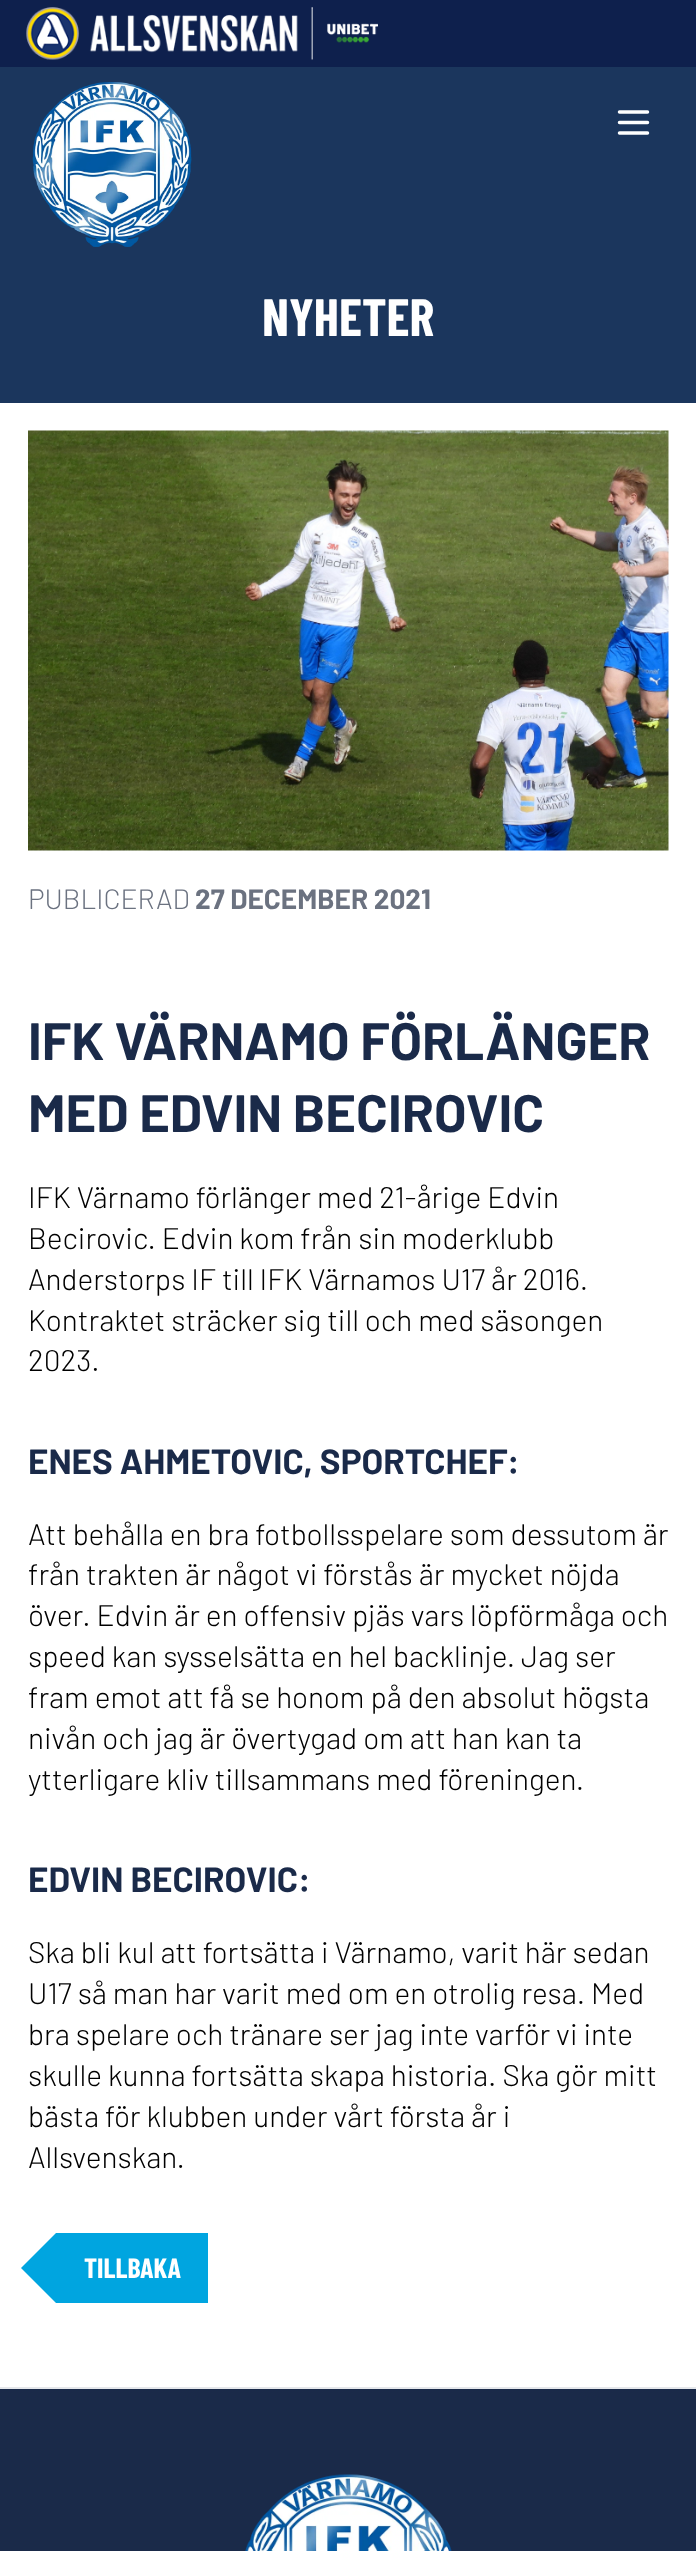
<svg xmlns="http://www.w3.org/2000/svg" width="696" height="2551">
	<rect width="100%" height="100%" fill="#1B365D" />
	<rect x="0" y="0" width="696" height="67" fill="#0E204D" />
	<image x="26" y="7" width="352" height="53" href="assets/img1.png" />
	<image x="32" y="82" width="160" height="165" href="assets/img2.png" />
	<path d="M619.5 112H647.5M619.5 122.5H647.5M619.5 133H647.5" fill="none" stroke="#FFFFFF" stroke-width="3.5" stroke-linecap="round" stroke-linejoin="round" />
	<text x="262" y="336" font-family="Barlow Condensed" font-size="52.5" font-weight="700" fill="#FFFFFF">NYHETER</text>
	<rect x="0" y="403" width="696" height="1984" fill="#FFFFFF" />
	<image x="28" y="430" width="641" height="421" href="assets/img3.png" />
	<text x="28" y="909" font-family="Barlow" font-size="28" font-weight="300" fill="#6B7280">PUBLICERAD</text>
	<text x="195" y="909" font-family="Barlow" font-size="28" font-weight="700" fill="#6B7280">27 DECEMBER 2021</text>
	<g font-family="Barlow" font-size="52.5" font-weight="700" fill="#1A2A49">
		<text x="28" y="1060">IFK VÄRNAMO FÖRLÄNGER</text>
		<text x="28" y="1132">MED EDVIN BECIROVIC</text>
	</g>
	<g font-family="Barlow" font-size="29.75" font-weight="300" fill="#000000">
		<text x="28" y="1208">IFK Värnamo förlänger med 21-årige Edvin</text>
		<text x="28" y="1249">Becirovic. Edvin kom från sin moderklubb</text>
		<text x="28" y="1290">Anderstorps IF till IFK Värnamos U17 år 2016.</text>
		<text x="28" y="1331">Kontraktet sträcker sig till och med säsongen</text>
		<text x="28" y="1371">2023.</text>
	</g>
	<text x="28" y="1474" font-family="Barlow" font-size="35" font-weight="700" fill="#1A2A49">ENES AHMETOVIC, SPORTCHEF:</text>
	<g font-family="Barlow" font-size="29.75" font-weight="300" fill="#000000">
		<text x="28" y="1545">Att behålla en bra fotbollsspelare som dessutom är</text>
		<text x="28" y="1585">från trakten är något vi förstås är mycket nöjda</text>
		<text x="28" y="1626">över. Edvin är en offensiv pjäs vars löpförmåga och</text>
		<text x="28" y="1667">speed kan sysselsätta en hel backlinje. Jag ser</text>
		<text x="28" y="1708">fram emot att få se honom på den absolut högsta</text>
		<text x="28" y="1749">nivån och jag är övertygad om att han kan ta</text>
		<text x="28" y="1790">ytterligare kliv tillsammans med föreningen.</text>
	</g>
	<text x="28" y="1892" font-family="Barlow" font-size="35" font-weight="700" fill="#1A2A49">EDVIN BECIROVIC:</text>
	<g font-family="Barlow" font-size="29.75" font-weight="300" fill="#000000">
		<text x="28" y="1963">Ska bli kul att fortsätta i Värnamo, varit här sedan</text>
		<text x="28" y="2004">U17 så man har varit med om en otrolig resa. Med</text>
		<text x="28" y="2045">bra spelare och tränare ser jag inte varför vi inte</text>
		<text x="28" y="2086">skulle kunna fortsätta skapa historia. Ska gör mitt</text>
		<text x="28" y="2127">bästa för klubben under vårt första år i</text>
		<text x="28" y="2168">Allsvenskan.</text>
	</g>
	<rect x="56" y="2233" width="152" height="70" fill="#00A5E0" />
	<path d="M56 2233V2303L21 2268Z" fill="#00A5E0" />
	<text x="84" y="2278" font-family="Barlow Condensed" font-size="28" font-weight="700" fill="#FFFFFF">TILLBAKA</text>
	<rect x="0" y="2389" width="696" height="162" fill="#1A2A49" />
	<rect x="0" y="2387" width="696" height="2" fill="#E5E7EB" />
	<image x="245" y="2474" width="207" height="77" href="assets/img4.png" />
</svg>
